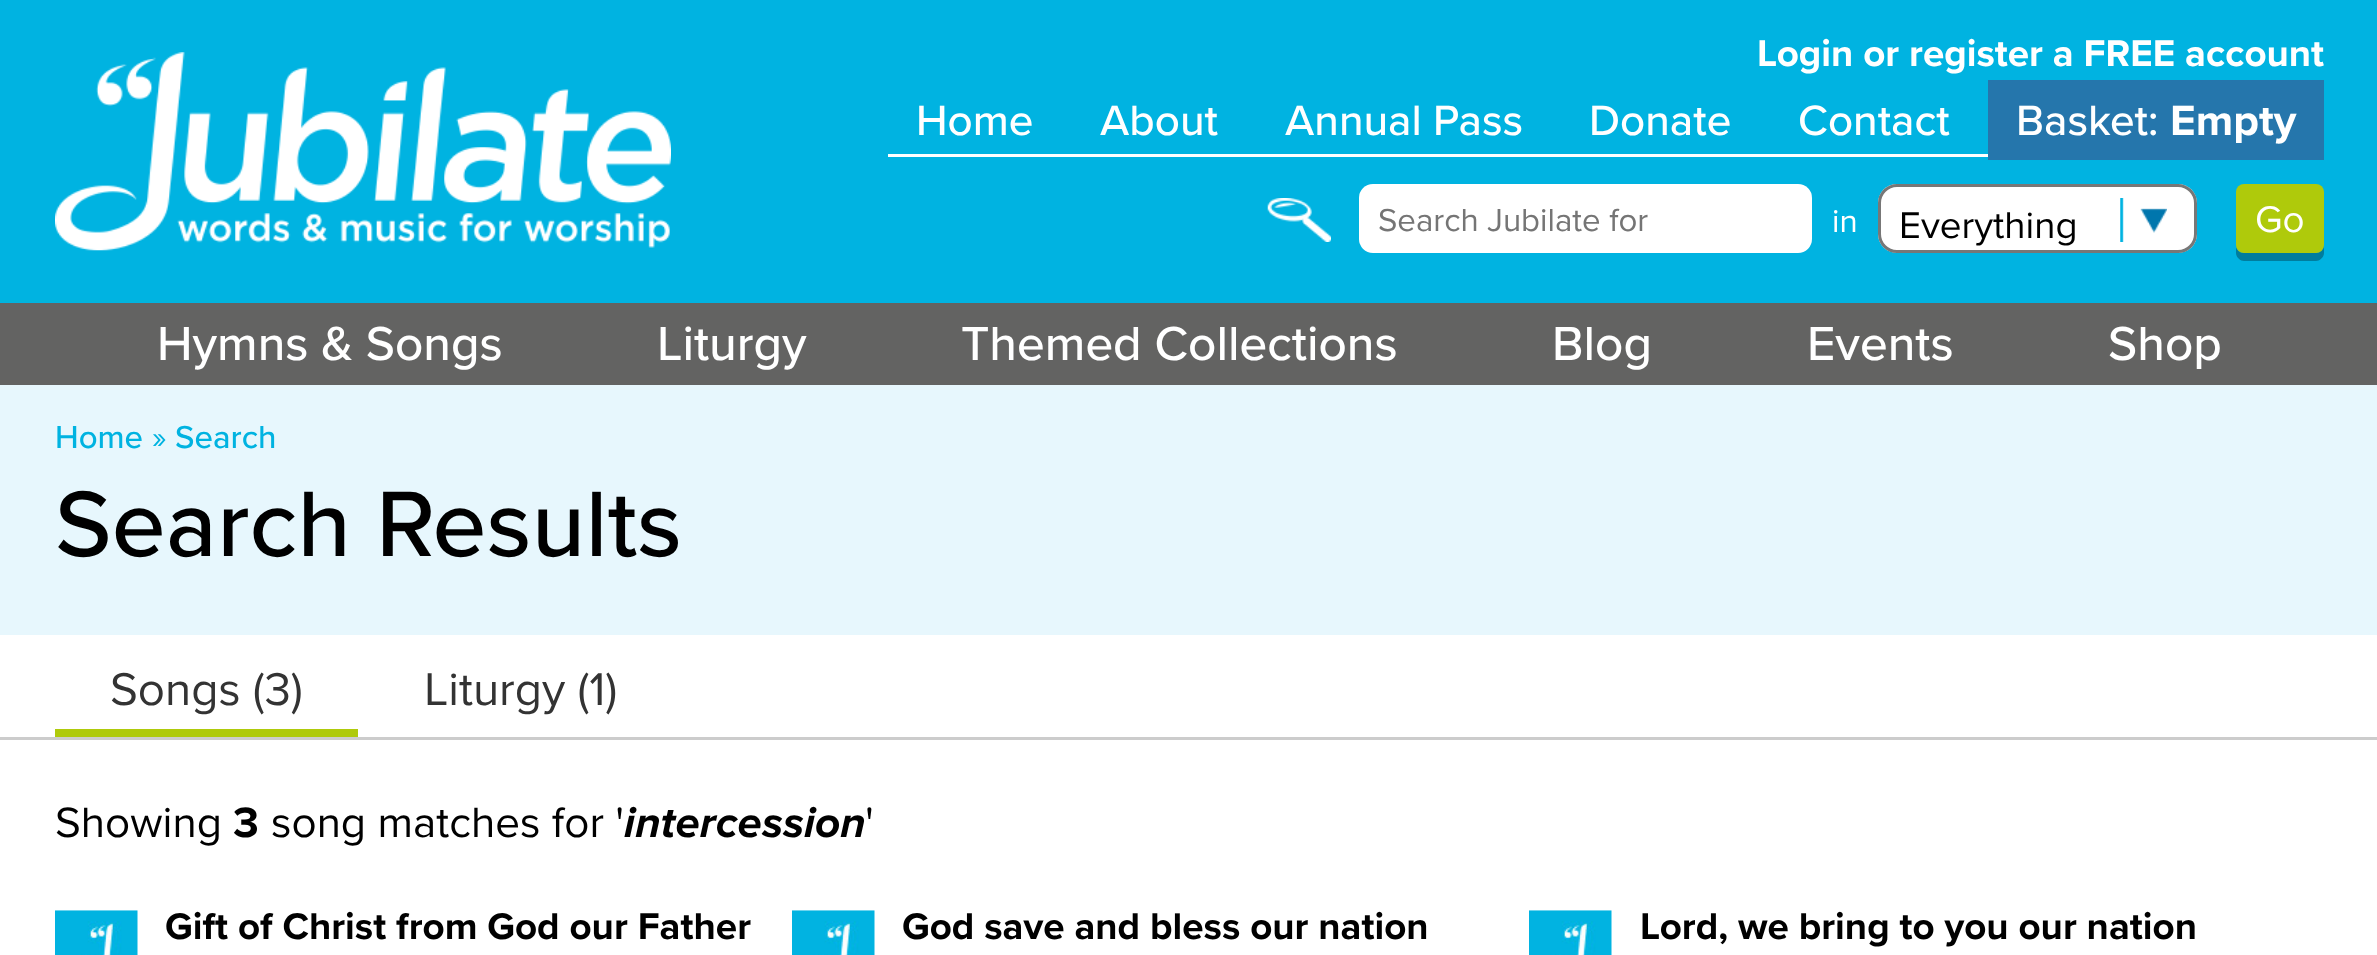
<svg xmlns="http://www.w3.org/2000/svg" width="2377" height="955">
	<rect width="100%" height="100%" fill="#FFFFFF" />
	<rect x="0" y="0" width="2377" height="303" fill="#00B3E1" />
	<rect x="0" y="300" width="237" height="2" fill="#00B5DB" />
	<image x="55" y="52" width="616" height="199" href="assets/img1.png" />
	<text x="1757" y="66" font-family="Proxima Nova" font-size="38.5" font-weight="700" fill="#FFFFFF">Login or register a FREE account</text>
	<g font-family="Proxima Nova" font-size="44" font-weight="500" fill="#FFFFFF">
		<text x="916" y="135">Home</text>
		<text x="1100" y="135">About</text>
		<text x="1285" y="135">Annual Pass</text>
		<text x="1589" y="135">Donate</text>
		<text x="1798" y="135">Contact</text>
	</g>
	<rect x="1988" y="80" width="336" height="80" fill="#2576AC" />
	<text x="2016" y="135" font-family="Proxima Nova" font-size="44" font-weight="500" fill="#FFFFFF">Basket:</text>
	<text x="2170" y="135" font-family="Proxima Nova" font-size="44" font-weight="700" fill="#FFFFFF">Empty</text>
	<rect x="888" y="154" width="1100" height="3" fill="#FFFFFF" />
	<image x="1267" y="198" width="64" height="44" href="assets/img2.png" />
	<rect x="1359" y="184" width="453" height="69" rx="14" fill="#FFFFFF" />
	<text x="1378" y="231" font-family="Proxima Nova" font-size="33" fill="#757575">Search Jubilate for</text>
	<text x="1832" y="232" font-family="Proxima Nova" font-size="33" fill="#FFFFFF">in</text>
	<rect x="1878" y="184" width="319" height="69" rx="19" fill="#FFFFFF" />
	<image x="2120" y="198" width="47" height="44" href="assets/img3.png" />
	<rect x="1879.5" y="185.5" width="316" height="66" rx="17.5" fill="none" stroke="#777777" stroke-width="3" />
	<text x="1899" y="238" font-family="Proxima Nova" font-size="38.5" fill="#000000">Everything</text>
	<path d="M2236 247V253C2236 257 2240 261 2244 261H2316C2320 261 2324 257 2324 253V199V245C2324 249 2320 253 2316 253H2244C2240 253 2237 250 2236 247Z" fill="#007D9E" />
	<rect x="2236" y="184" width="88" height="69" rx="8" fill="#AFCA0B" />
	<text x="2255" y="232" font-family="Proxima Nova" font-size="38.5" fill="#FFFFFF">Go</text>
	<rect x="0" y="303" width="2377" height="82" fill="#636362" />
	<g font-family="Proxima Nova" font-size="49.5" font-weight="500" fill="#FFFFFF">
		<text x="157" y="360">Hymns &amp; Songs</text>
		<text x="657" y="360">Liturgy</text>
		<text x="961" y="360">Themed Collections</text>
		<text x="1552" y="360">Blog</text>
		<text x="1807" y="360">Events</text>
		<text x="2108" y="360">Shop</text>
	</g>
	<rect x="0" y="385" width="2377" height="250" fill="#E7F7FD" />
	<text x="55" y="448" font-family="Proxima Nova" font-size="33" font-weight="500" fill="#00B3E1">Home</text>
	<text x="152" y="448" font-family="Proxima Nova" font-size="33" fill="#00B3E1">»</text>
	<text x="175" y="448" font-family="Proxima Nova" font-size="33" font-weight="500" fill="#00B3E1">Search</text>
	<text x="55" y="556" font-family="Proxima Nova" font-size="96.25" font-weight="500" fill="#000000">Search Results</text>
	<rect x="0" y="737" width="2377" height="3" fill="#CCCCCC" />
	<rect x="55" y="729" width="303" height="8" fill="#AFCA0B" />
	<g font-family="Proxima Nova" font-size="47.5" fill="#333333">
		<text x="110" y="705">Songs (3)</text>
		<text x="424" y="705">Liturgy (1)</text>
	</g>
	<text x="55" y="837" font-family="Proxima Nova" font-size="44" fill="#000000">Showing</text>
	<text x="233" y="837" font-family="Proxima Nova" font-size="44" font-weight="700" fill="#000000">3</text>
	<text x="271" y="837" font-family="Proxima Nova" font-size="44" fill="#000000">song matches for '</text>
	<text x="624" y="837" font-family="Proxima Nova" font-size="44" font-weight="700" font-style="italic" fill="#000000">intercession</text>
	<text x="865" y="837" font-family="Proxima Nova" font-size="44" fill="#000000">'</text>
	<image x="55" y="910" width="83" height="45" href="assets/img4.png" />
	<text x="165" y="939" font-family="Proxima Nova" font-size="38.5" font-weight="700" fill="#000000">Gift of Christ from God our Father</text>
	<image x="792" y="910" width="83" height="45" href="assets/img4.png" />
	<text x="902" y="939" font-family="Proxima Nova" font-size="38.5" font-weight="700" fill="#000000">God save and bless our nation</text>
	<image x="1529" y="910" width="83" height="45" href="assets/img4.png" />
	<text x="1640" y="939" font-family="Proxima Nova" font-size="38.5" font-weight="700" fill="#000000">Lord, we bring to you our nation</text>
</svg>
